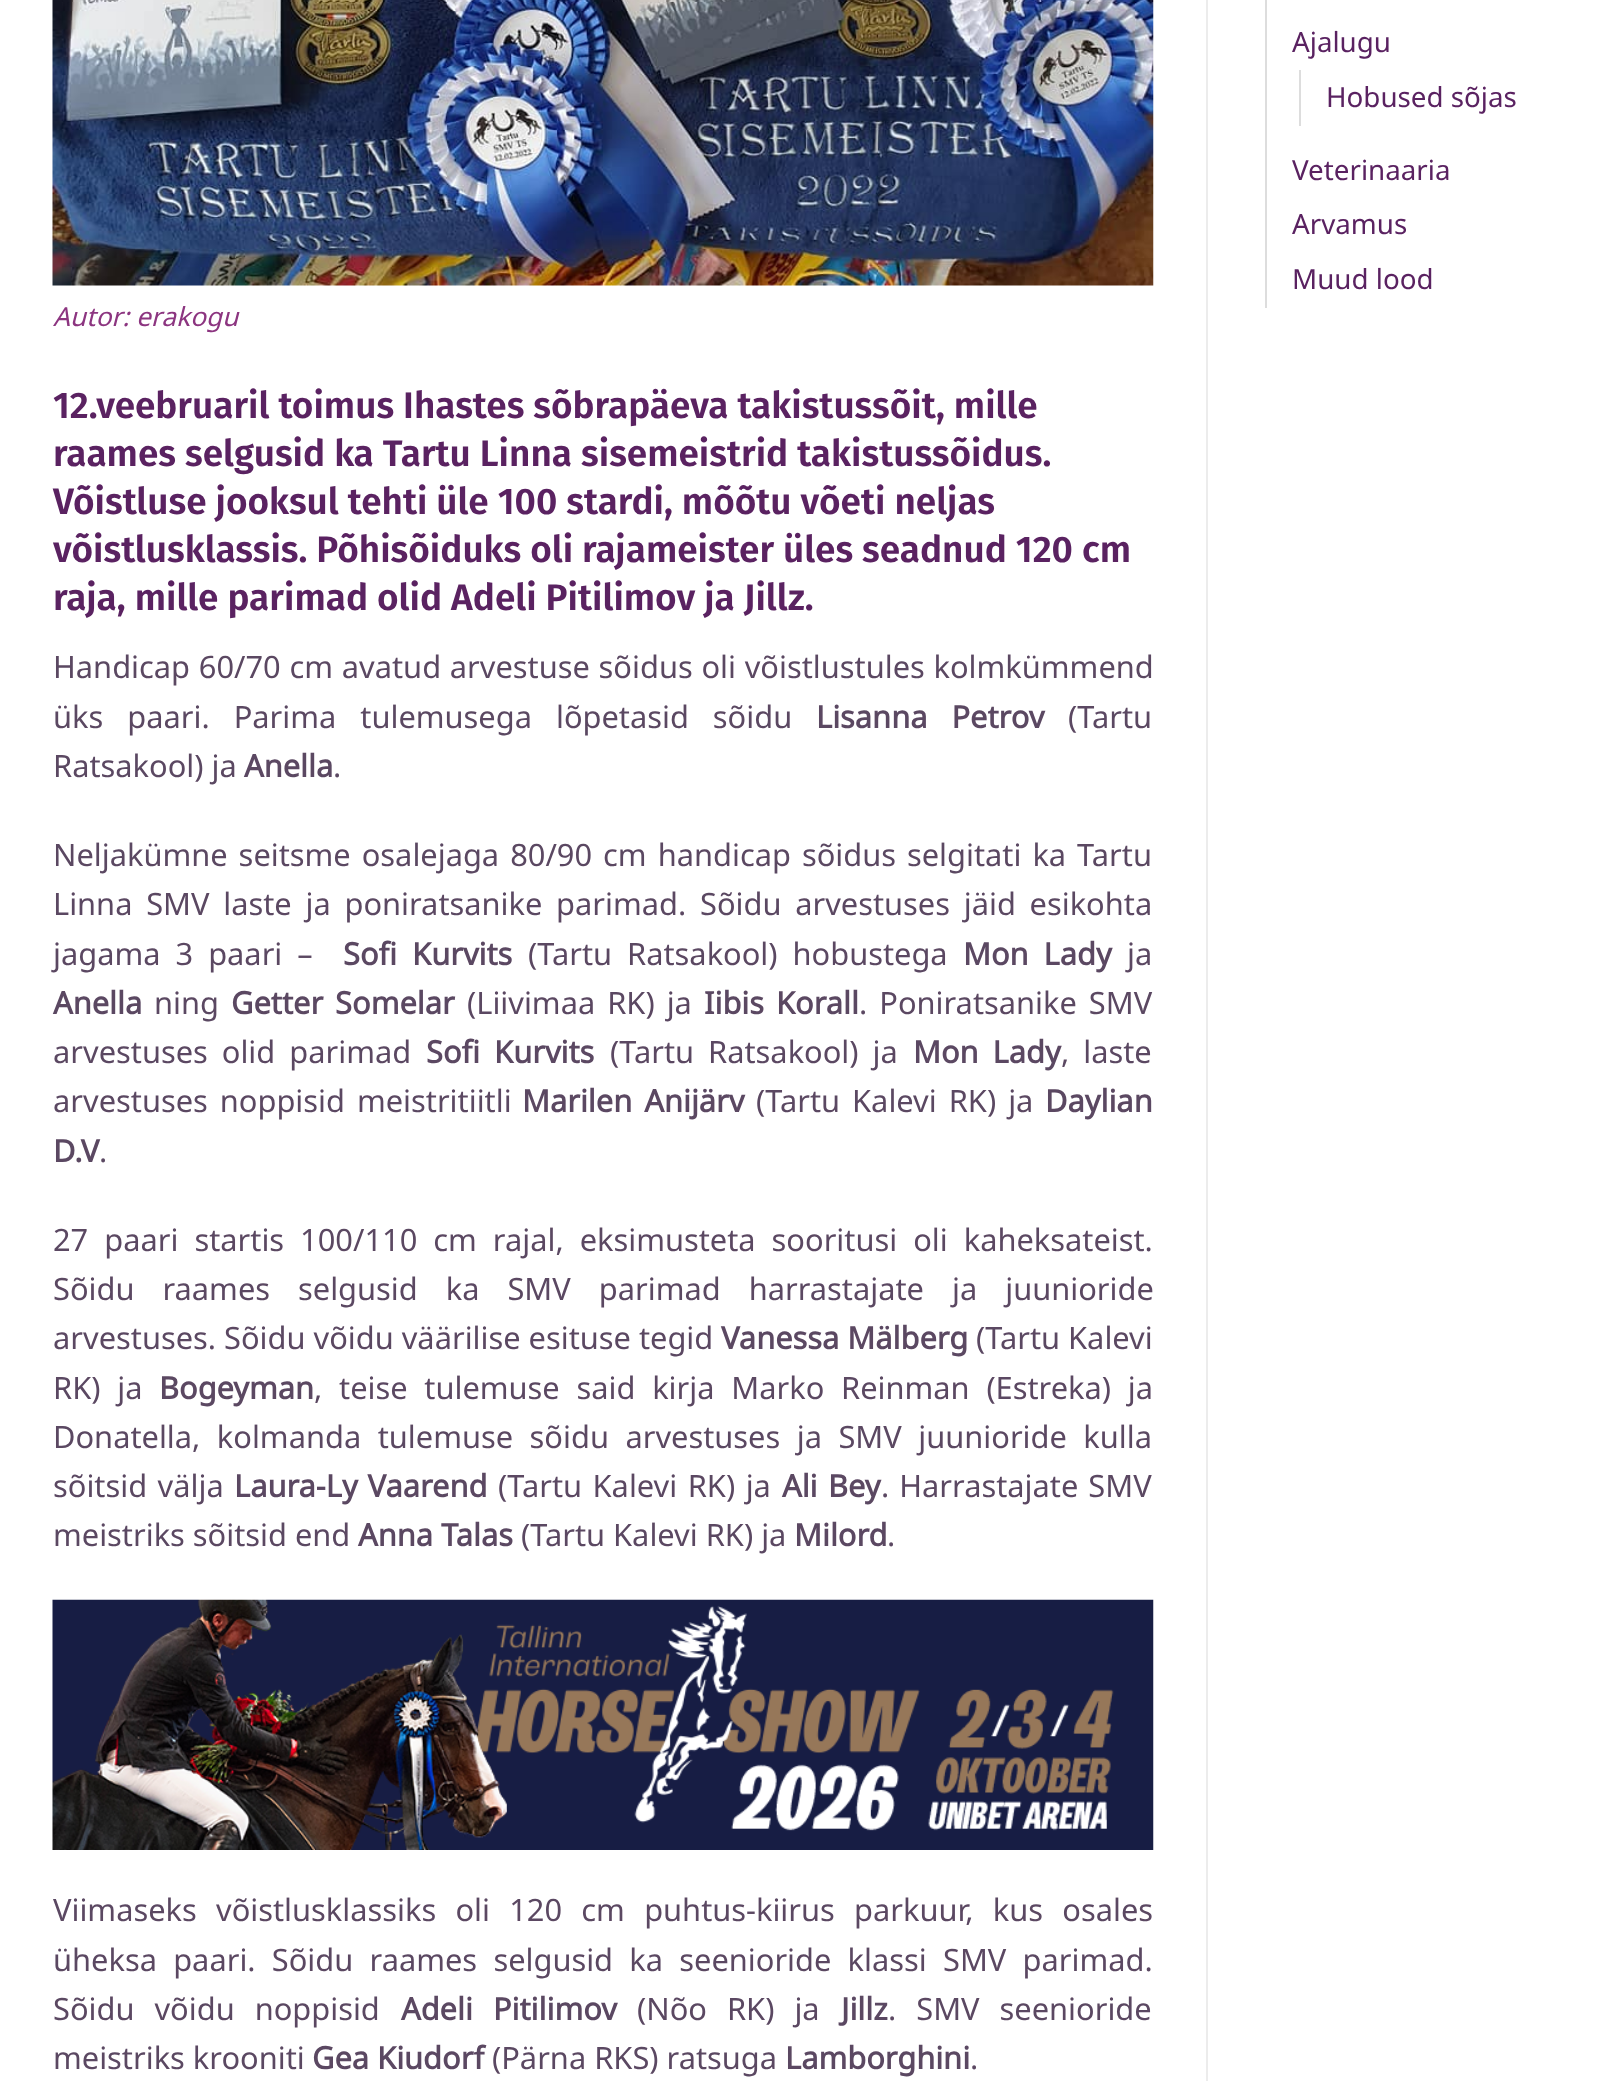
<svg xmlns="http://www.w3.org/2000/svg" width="1606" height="2081">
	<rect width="100%" height="100%" fill="#FFFFFF" />
	<rect x="1206" y="0" width="2" height="2081" fill="#ECECEC" />
	<rect x="1265" y="0" width="2" height="308" fill="#DDDDDD" />
	<text x="1292" y="52" font-family="Noto Sans" font-size="27.75" fill="#5A2261">Ajalugu</text>
	<rect x="1299" y="70" width="2" height="56" fill="#DDDDDD" />
	<g font-family="Noto Sans" font-size="27.75" fill="#5A2261">
		<text x="1326" y="107">Hobused sõjas</text>
		<text x="1292" y="180">Veterinaaria</text>
		<text x="1292" y="234">Arvamus</text>
		<text x="1292" y="289">Muud lood</text>
	</g>
	<image x="52" y="0" width="1102" height="286" href="assets/img1.png" />
	<text x="53" y="326" font-family="Noto Sans" font-size="26.25" font-style="italic" fill="#8C3580">Autor: erakogu</text>
	<g font-family="Fira Sans" font-size="36.95" font-weight="600" fill="#5A2261">
		<text x="53" y="418">12.veebruaril toimus Ihastes sõbrapäeva takistussõit, mille</text>
		<text x="53" y="466">raames selgusid ka Tartu Linna sisemeistrid takistussõidus.</text>
		<text x="53" y="514">Võistluse jooksul tehti üle 100 stardi, mõõtu võeti neljas</text>
		<text x="53" y="562">võistlusklassis. Põhisõiduks oli rajameister üles seadnud 120 cm</text>
		<text x="53" y="610">raja, mille parimad olid Adeli Pitilimov ja Jillz.</text>
	</g>
	<g font-family="Noto Sans" font-size="30.8" fill="#5B4862">
		<text x="53" y="678" word-spacing="0.75">Handicap 60/70 cm avatud arvestuse sõidus oli võistlustules kolmkümmend</text>
		<text x="53" y="728" word-spacing="16">üks paari. Parima tulemusega lõpetasid sõidu</text>
	</g>
	<text x="816" y="728" word-spacing="16" font-family="Noto Sans" font-size="30.8" font-weight="700" fill="#5B4862">Lisanna Petrov</text>
	<g font-family="Noto Sans" font-size="30.8" fill="#5B4862">
		<text x="1068" y="728">(Tartu</text>
		<text x="53" y="777">Ratsakool) ja</text>
	</g>
	<text x="244" y="777" font-family="Noto Sans" font-size="30.8" font-weight="700" fill="#5B4862">Anella</text>
	<g font-family="Noto Sans" font-size="30.8" fill="#5B4862">
		<text x="333" y="777">.</text>
		<text x="53" y="866" word-spacing="3">Neljakümne seitsme osalejaga 80/90 cm handicap sõidus selgitati ka Tartu</text>
		<text x="53" y="915" word-spacing="5.75">Linna SMV laste ja poniratsanike parimad. Sõidu arvestuses jäid esikohta</text>
		<text x="53" y="965" word-spacing="7">jagama 3 paari –</text>
	</g>
	<text x="343" y="965" word-spacing="7" font-family="Noto Sans" font-size="30.8" font-weight="700" fill="#5B4862">Sofi Kurvits</text>
	<text x="528" y="965" word-spacing="7" font-family="Noto Sans" font-size="30.8" fill="#5B4862">(Tartu Ratsakool) hobustega</text>
	<text x="963" y="965" word-spacing="7" font-family="Noto Sans" font-size="30.8" font-weight="700" fill="#5B4862">Mon Lady</text>
	<text x="1127" y="965" font-family="Noto Sans" font-size="30.8" fill="#5B4862">ja</text>
	<text x="53" y="1014" font-family="Noto Sans" font-size="30.8" font-weight="700" fill="#5B4862">Anella</text>
	<text x="154" y="1014" font-family="Noto Sans" font-size="30.8" fill="#5B4862">ning</text>
	<text x="231" y="1014" word-spacing="4" font-family="Noto Sans" font-size="30.8" font-weight="700" fill="#5B4862">Getter Somelar</text>
	<text x="467" y="1014" word-spacing="4" font-family="Noto Sans" font-size="30.8" fill="#5B4862">(Liivimaa RK) ja</text>
	<text x="704" y="1014" word-spacing="4" font-family="Noto Sans" font-size="30.8" font-weight="700" fill="#5B4862">Iibis Korall</text>
	<g font-family="Noto Sans" font-size="30.8" fill="#5B4862">
		<text x="859" y="1014" word-spacing="4">. Poniratsanike SMV</text>
		<text x="53" y="1063" word-spacing="6">arvestuses olid parimad</text>
	</g>
	<text x="426" y="1063" word-spacing="6" font-family="Noto Sans" font-size="30.8" font-weight="700" fill="#5B4862">Sofi Kurvits</text>
	<text x="610" y="1063" word-spacing="6" font-family="Noto Sans" font-size="30.8" fill="#5B4862">(Tartu Ratsakool) ja</text>
	<text x="913" y="1063" word-spacing="6" font-family="Noto Sans" font-size="30.8" font-weight="700" fill="#5B4862">Mon Lady</text>
	<g font-family="Noto Sans" font-size="30.8" fill="#5B4862">
		<text x="1061" y="1063" word-spacing="6">, laste</text>
		<text x="53" y="1112" word-spacing="4">arvestuses noppisid meistritiitli</text>
	</g>
	<text x="522" y="1112" word-spacing="4" font-family="Noto Sans" font-size="30.8" font-weight="700" fill="#5B4862">Marilen Anijärv</text>
	<text x="756" y="1112" word-spacing="4" font-family="Noto Sans" font-size="30.8" fill="#5B4862">(Tartu Kalevi RK) ja</text>
	<g font-family="Noto Sans" font-size="30.8" font-weight="700" fill="#5B4862">
		<text x="1045" y="1112">Daylian</text>
		<text x="53" y="1162">D.V</text>
	</g>
	<g font-family="Noto Sans" font-size="30.8" fill="#5B4862">
		<text x="99" y="1162">.</text>
		<text x="53" y="1251" word-spacing="8">27 paari startis 100/110 cm rajal, eksimusteta sooritusi oli kaheksateist.</text>
		<text x="53" y="1300" word-spacing="20">Sõidu raames selgusid ka SMV parimad harrastajate ja juunioride</text>
		<text x="53" y="1349">arvestuses. Sõidu võidu väärilise esituse tegid</text>
	</g>
	<text x="721" y="1349" font-family="Noto Sans" font-size="30.8" font-weight="700" fill="#5B4862">Vanessa Mälberg</text>
	<g font-family="Noto Sans" font-size="30.8" fill="#5B4862">
		<text x="976" y="1349">(Tartu Kalevi</text>
		<text x="53" y="1399" word-spacing="8.75">RK) ja</text>
	</g>
	<text x="159" y="1399" font-family="Noto Sans" font-size="30.8" font-weight="700" fill="#5B4862">Bogeyman</text>
	<g font-family="Noto Sans" font-size="30.8" fill="#5B4862">
		<text x="314" y="1399" word-spacing="8.75">, teise tulemuse said kirja Marko Reinman (Estreka) ja</text>
		<text x="53" y="1448" word-spacing="8.5">Donatella, kolmanda tulemuse sõidu arvestuses ja SMV juunioride kulla</text>
		<text x="53" y="1497" word-spacing="2.5">sõitsid välja</text>
	</g>
	<text x="234" y="1497" word-spacing="2" font-family="Noto Sans" font-size="30.8" font-weight="700" fill="#5B4862">Laura-Ly Vaarend</text>
	<text x="498" y="1497" word-spacing="2.5" font-family="Noto Sans" font-size="30.8" fill="#5B4862">(Tartu Kalevi RK) ja</text>
	<text x="782" y="1497" word-spacing="2.5" font-family="Noto Sans" font-size="30.8" font-weight="700" fill="#5B4862">Ali Bey</text>
	<g font-family="Noto Sans" font-size="30.8" fill="#5B4862">
		<text x="881" y="1497" word-spacing="2">. Harrastajate SMV</text>
		<text x="53" y="1546">meistriks sõitsid end</text>
	</g>
	<text x="358" y="1546" font-family="Noto Sans" font-size="30.8" font-weight="700" fill="#5B4862">Anna Talas</text>
	<text x="521" y="1546" font-family="Noto Sans" font-size="30.8" fill="#5B4862">(Tartu Kalevi RK) ja</text>
	<text x="794" y="1546" font-family="Noto Sans" font-size="30.8" font-weight="700" fill="#5B4862">Milord</text>
	<text x="887" y="1546" font-family="Noto Sans" font-size="30.8" fill="#5B4862">.</text>
	<image x="52" y="1599" width="1102" height="251" href="assets/img2.png" />
	<g font-family="Noto Sans" font-size="30.8" fill="#5B4862">
		<text x="53" y="1921" word-spacing="11.25">Viimaseks võistlusklassiks oli 120 cm puhtus-kiirus parkuur, kus osales</text>
		<text x="53" y="1971" word-spacing="8.25">üheksa paari. Sõidu raames selgusid ka seenioride klassi SMV parimad.</text>
		<text x="53" y="2020" word-spacing="12">Sõidu võidu noppisid</text>
	</g>
	<text x="401" y="2020" word-spacing="12" font-family="Noto Sans" font-size="30.8" font-weight="700" fill="#5B4862">Adeli Pitilimov</text>
	<text x="637" y="2020" word-spacing="12" font-family="Noto Sans" font-size="30.8" fill="#5B4862">(Nõo RK) ja</text>
	<text x="841" y="2020" font-family="Noto Sans" font-size="30.8" font-weight="700" fill="#5B4862">Jillz</text>
	<g font-family="Noto Sans" font-size="30.8" fill="#5B4862">
		<text x="888" y="2020" word-spacing="12">. SMV seenioride</text>
		<text x="53" y="2069">meistriks krooniti</text>
	</g>
	<text x="312" y="2069" font-family="Noto Sans" font-size="30.8" font-weight="700" fill="#5B4862">Gea Kiudorf</text>
	<text x="492" y="2069" font-family="Noto Sans" font-size="30.8" fill="#5B4862">(Pärna RKS) ratsuga</text>
	<text x="785" y="2069" font-family="Noto Sans" font-size="30.8" font-weight="700" fill="#5B4862">Lamborghini</text>
	<text x="970" y="2069" font-family="Noto Sans" font-size="30.8" fill="#5B4862">.</text>
</svg>
